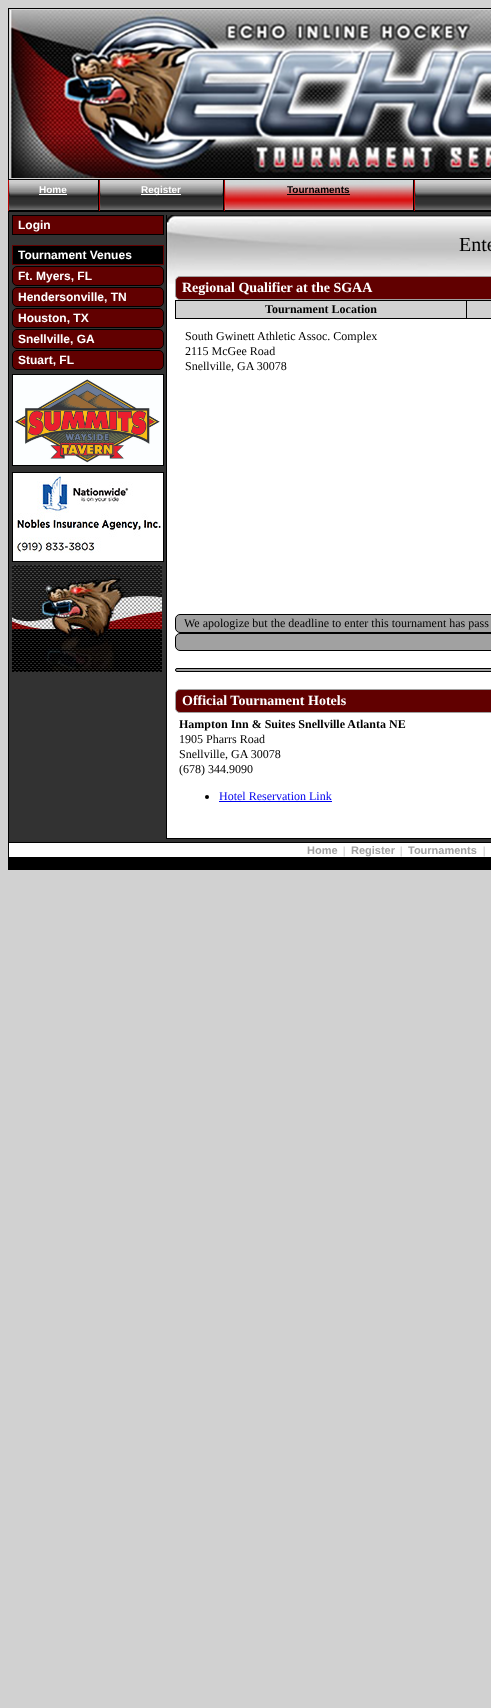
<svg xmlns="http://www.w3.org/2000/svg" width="491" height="1708">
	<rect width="100%" height="100%" fill="#D1D1D1" />
	<rect x="8.5" y="8.5" width="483" height="171" fill="none" stroke="#000000" />
	<image x="10" y="10" width="481" height="168" href="assets/img1.png" />
	<image x="9" y="181" width="89" height="29" href="assets/img2.png" />
	<rect x="98" y="180" width="1" height="31" fill="#000000" />
	<rect x="8" y="210" width="91" height="1" fill="#000000" />
	<rect x="8" y="180" width="1" height="31" fill="#B60000" />
	<image x="10" y="182" width="87" height="26" href="assets/img3.png" />
	<text x="39" y="193" font-family="Liberation Sans" font-size="10" font-weight="700" fill="#FFFFFF">Home</text>
	<rect x="39" y="194" width="28" height="1" fill="#FFFFFF" />
	<image x="100" y="181" width="123" height="29" href="assets/img4.png" />
	<rect x="223" y="180" width="1" height="31" fill="#000000" />
	<rect x="99" y="210" width="125" height="1" fill="#000000" />
	<rect x="99" y="180" width="1" height="31" fill="#B60000" />
	<image x="101" y="182" width="121" height="26" href="assets/img5.png" />
	<rect x="141" y="194" width="40" height="1" fill="#FFFFFF" />
	<text x="141" y="193" font-family="Liberation Sans" font-size="10" font-weight="700" fill="#FFFFFF">Register</text>
	<image x="225" y="180" width="188" height="30" href="assets/img6.png" />
	<rect x="413" y="180" width="1" height="31" fill="#000000" />
	<rect x="224" y="210" width="267" height="1" fill="#000000" />
	<rect x="224" y="180" width="1" height="31" fill="#B60000" />
	<image x="226" y="183" width="186" height="26" href="assets/img7.png" />
	<text x="287" y="193" font-family="Liberation Sans" font-size="10" font-weight="700" fill="#000000">Tournaments</text>
	<rect x="287" y="194" width="63" height="1" fill="#000000" />
	<image x="415" y="181" width="76" height="29" href="assets/img8.png" />
	<rect x="414" y="180" width="1" height="31" fill="#B60000" />
	<image x="416" y="182" width="75" height="26" href="assets/img9.png" />
	<rect x="8.5" y="211.5" width="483" height="631" fill="#323232" stroke="#000000" />
	<rect x="12.5" y="215.5" width="151" height="19" fill="#610000" stroke="#000000" />
	<text x="18" y="229" font-family="Liberation Sans" font-size="12" font-weight="700" fill="#FFFFFF">Login</text>
	<rect x="12.5" y="245.5" width="151" height="19" fill="#000000" stroke="#610000" />
	<text x="18" y="259" font-family="Liberation Sans" font-size="12" font-weight="700" fill="#FFFFFF">Tournament Venues</text>
	<rect x="12.5" y="266.5" width="151" height="19" rx="4.5" fill="#610000" stroke="#000000" />
	<text x="18" y="280" font-family="Liberation Sans" font-size="12" font-weight="700" fill="#FFFFFF">Ft. Myers, FL</text>
	<rect x="12.5" y="287.5" width="151" height="19" rx="4.5" fill="#610000" stroke="#000000" />
	<text x="18" y="301" font-family="Liberation Sans" font-size="12" font-weight="700" fill="#FFFFFF">Hendersonville, TN</text>
	<rect x="12.5" y="308.5" width="151" height="19" rx="4.5" fill="#610000" stroke="#000000" />
	<text x="18" y="322" font-family="Liberation Sans" font-size="12" font-weight="700" fill="#FFFFFF">Houston, TX</text>
	<rect x="12.5" y="329.5" width="151" height="19" rx="4.5" fill="#610000" stroke="#000000" />
	<text x="18" y="343" font-family="Liberation Sans" font-size="12" font-weight="700" fill="#FFFFFF">Snellville, GA</text>
	<rect x="12.5" y="350.5" width="151" height="19" rx="4.5" fill="#610000" stroke="#000000" />
	<text x="18" y="364" font-family="Liberation Sans" font-size="12" font-weight="700" fill="#FFFFFF">Stuart, FL</text>
	<rect x="12.5" y="374.5" width="151" height="91" fill="none" stroke="#000000" />
	<image x="13" y="375" width="150" height="90" href="assets/img10.png" />
	<rect x="12.5" y="472.5" width="151" height="89" fill="none" stroke="#000000" />
	<image x="13" y="473" width="150" height="88" href="assets/img11.png" />
	<image x="12" y="565" width="150" height="107" href="assets/img12.png" />
	<rect x="167" y="284" width="324" height="554" fill="#FFFFFF" />
	<image x="167" y="215" width="324" height="69" href="assets/img13.png" />
	<rect x="166" y="838" width="325" height="1" fill="#000000" />
	<rect x="166" y="215" width="1" height="624" fill="#000000" />
	<text x="459" y="251" font-family="Liberation Serif" font-size="20" fill="#000000">Ente</text>
	<rect x="175.5" y="276.5" width="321" height="23" rx="4.5" fill="#610000" stroke="#A1A1A1" />
	<text x="182" y="292" font-family="Liberation Serif" font-size="14" font-weight="700" fill="#FFFFFF">Regional Qualifier at the SGAA</text>
	<rect x="176" y="301" width="290" height="17" fill="#D1D1D1" />
	<rect x="175" y="300" width="316" height="1" fill="#000000" />
	<rect x="175" y="318" width="316" height="1" fill="#000000" />
	<rect x="175" y="300" width="1" height="19" fill="#000000" />
	<text x="265" y="313" font-family="Liberation Serif" font-size="12" font-weight="700" fill="#000000">Tournament Location</text>
	<rect x="467" y="301" width="24" height="17" fill="#D1D1D1" />
	<rect x="466" y="300" width="1" height="19" fill="#000000" />
	<g font-family="Liberation Serif" font-size="12" fill="#000000">
		<text x="185" y="340">South Gwinett Athletic Assoc. Complex</text>
		<text x="185" y="355">2115 McGee Road</text>
		<text x="185" y="370">Snellville, GA 30078</text>
	</g>
	<rect x="175.5" y="614.5" width="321" height="18" rx="4.5" fill="#A1A1A1" stroke="#000000" />
	<text x="184" y="627" font-family="Liberation Serif" font-size="12" fill="#000000">We apologize but the deadline to enter this tournament has pass</text>
	<rect x="175.5" y="633.5" width="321" height="17" rx="4.5" fill="#A1A1A1" stroke="#000000" />
	<rect x="175.5" y="668.5" width="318" height="3" rx="1.5" fill="#A1A1A1" stroke="#000000" />
	<rect x="175.5" y="689.5" width="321" height="23" rx="4.5" fill="#610000" stroke="#A1A1A1" />
	<text x="182" y="705" font-family="Liberation Serif" font-size="14" font-weight="700" fill="#FFFFFF">Official Tournament Hotels</text>
	<text x="179" y="728" font-family="Liberation Serif" font-size="12" font-weight="700" fill="#000000">Hampton Inn &amp; Suites Snellville Atlanta NE</text>
	<g font-family="Liberation Serif" font-size="12" fill="#000000">
		<text x="179" y="743">1905 Pharrs Road</text>
		<text x="179" y="758">Snellville, GA 30078</text>
		<text x="179" y="773">(678) 344.9090</text>
	</g>
	<circle cx="207" cy="797" r="2" fill="#000000" />
	<text x="219" y="800" font-family="Liberation Serif" font-size="12" fill="#0000EE">Hotel Reservation Link</text>
	<rect x="219" y="801" width="113" height="1" fill="#0000EE" />
	<rect x="9" y="843" width="482" height="14" fill="#FFFFFF" />
	<rect x="8" y="843" width="1" height="14" fill="#000000" />
	<text x="307" y="854" font-family="Liberation Sans" font-size="11" font-weight="700" fill="#A1A1A1">Home</text>
	<text x="343" y="854" font-family="Liberation Serif" font-size="11" fill="#A1A1A1">|</text>
	<text x="351" y="854" font-family="Liberation Sans" font-size="11" font-weight="700" fill="#A1A1A1">Register</text>
	<text x="400" y="854" font-family="Liberation Serif" font-size="11" fill="#A1A1A1">|</text>
	<text x="408" y="854" font-family="Liberation Sans" font-size="11" font-weight="700" fill="#A1A1A1">Tournaments</text>
	<text x="483" y="854" font-family="Liberation Serif" font-size="11" fill="#A1A1A1">|</text>
	<rect x="8" y="857" width="483" height="13" fill="#000000" />
</svg>
